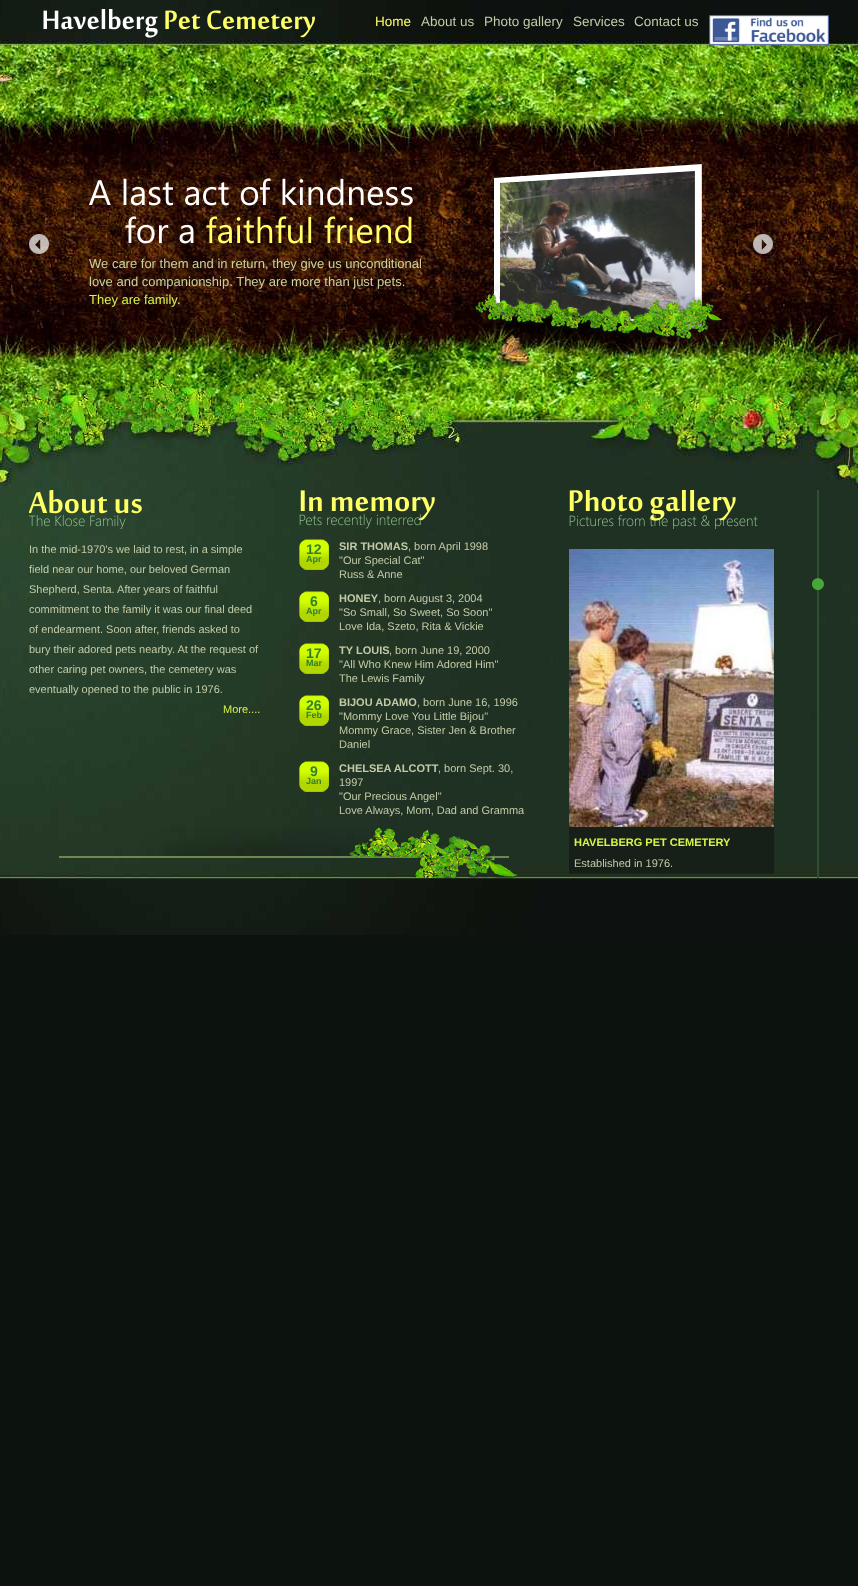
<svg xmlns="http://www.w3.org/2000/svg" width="858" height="1586">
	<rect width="100%" height="100%" fill="#0C120D" />
	<image x="0" y="0" width="858" height="935" href="assets/img1.png" />
	<image x="43" y="9" width="272" height="29" href="assets/img2.png" />
	<text x="375" y="26" font-family="Liberation Sans" font-size="13.5" fill="#FFFF66">Home</text>
	<g font-family="Liberation Sans" font-size="13.5" fill="#C3CAA6">
		<text x="421" y="26">About us</text>
		<text x="484" y="26">Photo gallery</text>
		<text x="573" y="26">Services</text>
		<text x="634" y="26">Contact us</text>
	</g>
	<image x="709" y="15" width="120" height="30" href="assets/img3.png" />
	<image x="29" y="234" width="20" height="20" href="assets/img4.png" />
	<image x="753" y="234" width="20" height="20" href="assets/img5.png" />
	<image x="89" y="178" width="324" height="66" href="assets/img6.png" />
	<g font-family="Liberation Sans" font-size="13" fill="#C9D29C">
		<text x="89" y="268">We care for them and in return, they give us unconditional</text>
		<text x="89" y="286">love and companionship. They are more than just pets.</text>
	</g>
	<text x="89" y="304" font-family="Liberation Sans" font-size="13" fill="#D6F549">They are family.</text>
	<image x="475" y="164" width="248" height="192" href="assets/img7.png" />
	<image x="29" y="490" width="113" height="39" href="assets/img8.png" />
	<g font-family="Liberation Sans" font-size="11" fill="#C3CAA6">
		<text x="29" y="553">In the mid-1970's we laid to rest, in a simple</text>
		<text x="29" y="573">field near our home, our beloved German</text>
		<text x="29" y="593">Shepherd, Senta. After years of faithful</text>
		<text x="29" y="613">commitment to the family it was our final deed</text>
		<text x="29" y="633">of endearment. Soon after, friends asked to</text>
		<text x="29" y="653">bury their adored pets nearby. At the request of</text>
		<text x="29" y="673">other caring pet owners, the cemetery was</text>
		<text x="29" y="693">eventually opened to the public in 1976.</text>
	</g>
	<text x="223" y="713" font-family="Liberation Sans" font-size="11" fill="#D6F549">More....</text>
	<image x="299" y="490" width="136" height="39" href="assets/img9.png" />
	<image x="299" y="539" width="30" height="31" href="assets/img10.png" />
	<text x="306" y="554" font-family="Liberation Sans" font-size="14" font-weight="700" fill="#30812C">12</text>
	<text x="306" y="562" font-family="Liberation Sans" font-size="9" font-weight="700" fill="#30812C">Apr</text>
	<text x="339" y="550" font-family="Liberation Sans" font-size="11" font-weight="700" fill="#C3CAA6">SIR THOMAS</text>
	<g font-family="Liberation Sans" font-size="11" fill="#C3CAA6">
		<text x="408" y="550">, born April 1998</text>
		<text x="339" y="564">"Our Special Cat"</text>
		<text x="339" y="578">Russ &amp; Anne</text>
	</g>
	<image x="299" y="591" width="30" height="31" href="assets/img11.png" />
	<text x="310" y="606" font-family="Liberation Sans" font-size="14" font-weight="700" fill="#30812C">6</text>
	<text x="306" y="614" font-family="Liberation Sans" font-size="9" font-weight="700" fill="#30812C">Apr</text>
	<text x="339" y="602" font-family="Liberation Sans" font-size="11" font-weight="700" fill="#C3CAA6">HONEY</text>
	<g font-family="Liberation Sans" font-size="11" fill="#C3CAA6">
		<text x="378" y="602">, born August 3, 2004</text>
		<text x="339" y="616">"So Small, So Sweet, So Soon"</text>
		<text x="339" y="630">Love Ida, Szeto, Rita &amp; Vickie</text>
	</g>
	<image x="299" y="643" width="30" height="31" href="assets/img12.png" />
	<text x="306" y="658" font-family="Liberation Sans" font-size="14" font-weight="700" fill="#30812C">17</text>
	<text x="306" y="666" font-family="Liberation Sans" font-size="9" font-weight="700" fill="#30812C">Mar</text>
	<text x="339" y="654" font-family="Liberation Sans" font-size="11" font-weight="700" fill="#C3CAA6">TY LOUIS</text>
	<g font-family="Liberation Sans" font-size="11" fill="#C3CAA6">
		<text x="389" y="654">, born June 19, 2000</text>
		<text x="339" y="668">"All Who Knew Him Adored Him"</text>
		<text x="339" y="682">The Lewis Family</text>
	</g>
	<image x="299" y="695" width="30" height="31" href="assets/img13.png" />
	<text x="306" y="710" font-family="Liberation Sans" font-size="14" font-weight="700" fill="#30812C">26</text>
	<text x="306" y="718" font-family="Liberation Sans" font-size="9" font-weight="700" fill="#30812C">Feb</text>
	<text x="339" y="706" font-family="Liberation Sans" font-size="11" font-weight="700" fill="#C3CAA6">BIJOU ADAMO</text>
	<g font-family="Liberation Sans" font-size="11" fill="#C3CAA6">
		<text x="417" y="706">, born June 16, 1996</text>
		<text x="339" y="720">"Mommy Love You Little Bijou"</text>
		<text x="339" y="734">Mommy Grace, Sister Jen &amp; Brother</text>
		<text x="339" y="748">Daniel</text>
	</g>
	<image x="299" y="761" width="30" height="31" href="assets/img14.png" />
	<text x="310" y="776" font-family="Liberation Sans" font-size="14" font-weight="700" fill="#30812C">9</text>
	<text x="306" y="784" font-family="Liberation Sans" font-size="9" font-weight="700" fill="#30812C">Jan</text>
	<text x="339" y="772" font-family="Liberation Sans" font-size="11" font-weight="700" fill="#C3CAA6">CHELSEA ALCOTT</text>
	<g font-family="Liberation Sans" font-size="11" fill="#C3CAA6">
		<text x="438" y="772">, born Sept. 30,</text>
		<text x="339" y="786">1997</text>
		<text x="339" y="800">"Our Precious Angel"</text>
		<text x="339" y="814">Love Always, Mom, Dad and Gramma</text>
	</g>
	<image x="59" y="827" width="459" height="51" href="assets/img15.png" />
	<image x="569" y="490" width="189" height="39" href="assets/img16.png" />
	<image x="569" y="549" width="205" height="278" href="assets/img17.png" />
	<rect x="569" y="827" width="205" height="47" fill="#172018" />
	<text x="574" y="846" font-family="Liberation Sans" font-size="11" font-weight="700" fill="#D6F549">HAVELBERG PET CEMETERY</text>
	<text x="574" y="867" font-family="Liberation Sans" font-size="11" fill="#C3CAA6">Established in 1976.</text>
	<rect x="817" y="490" width="2" height="388" fill="#304E34" />
	<image x="812" y="578" width="12" height="12" href="assets/img18.png" />
</svg>
